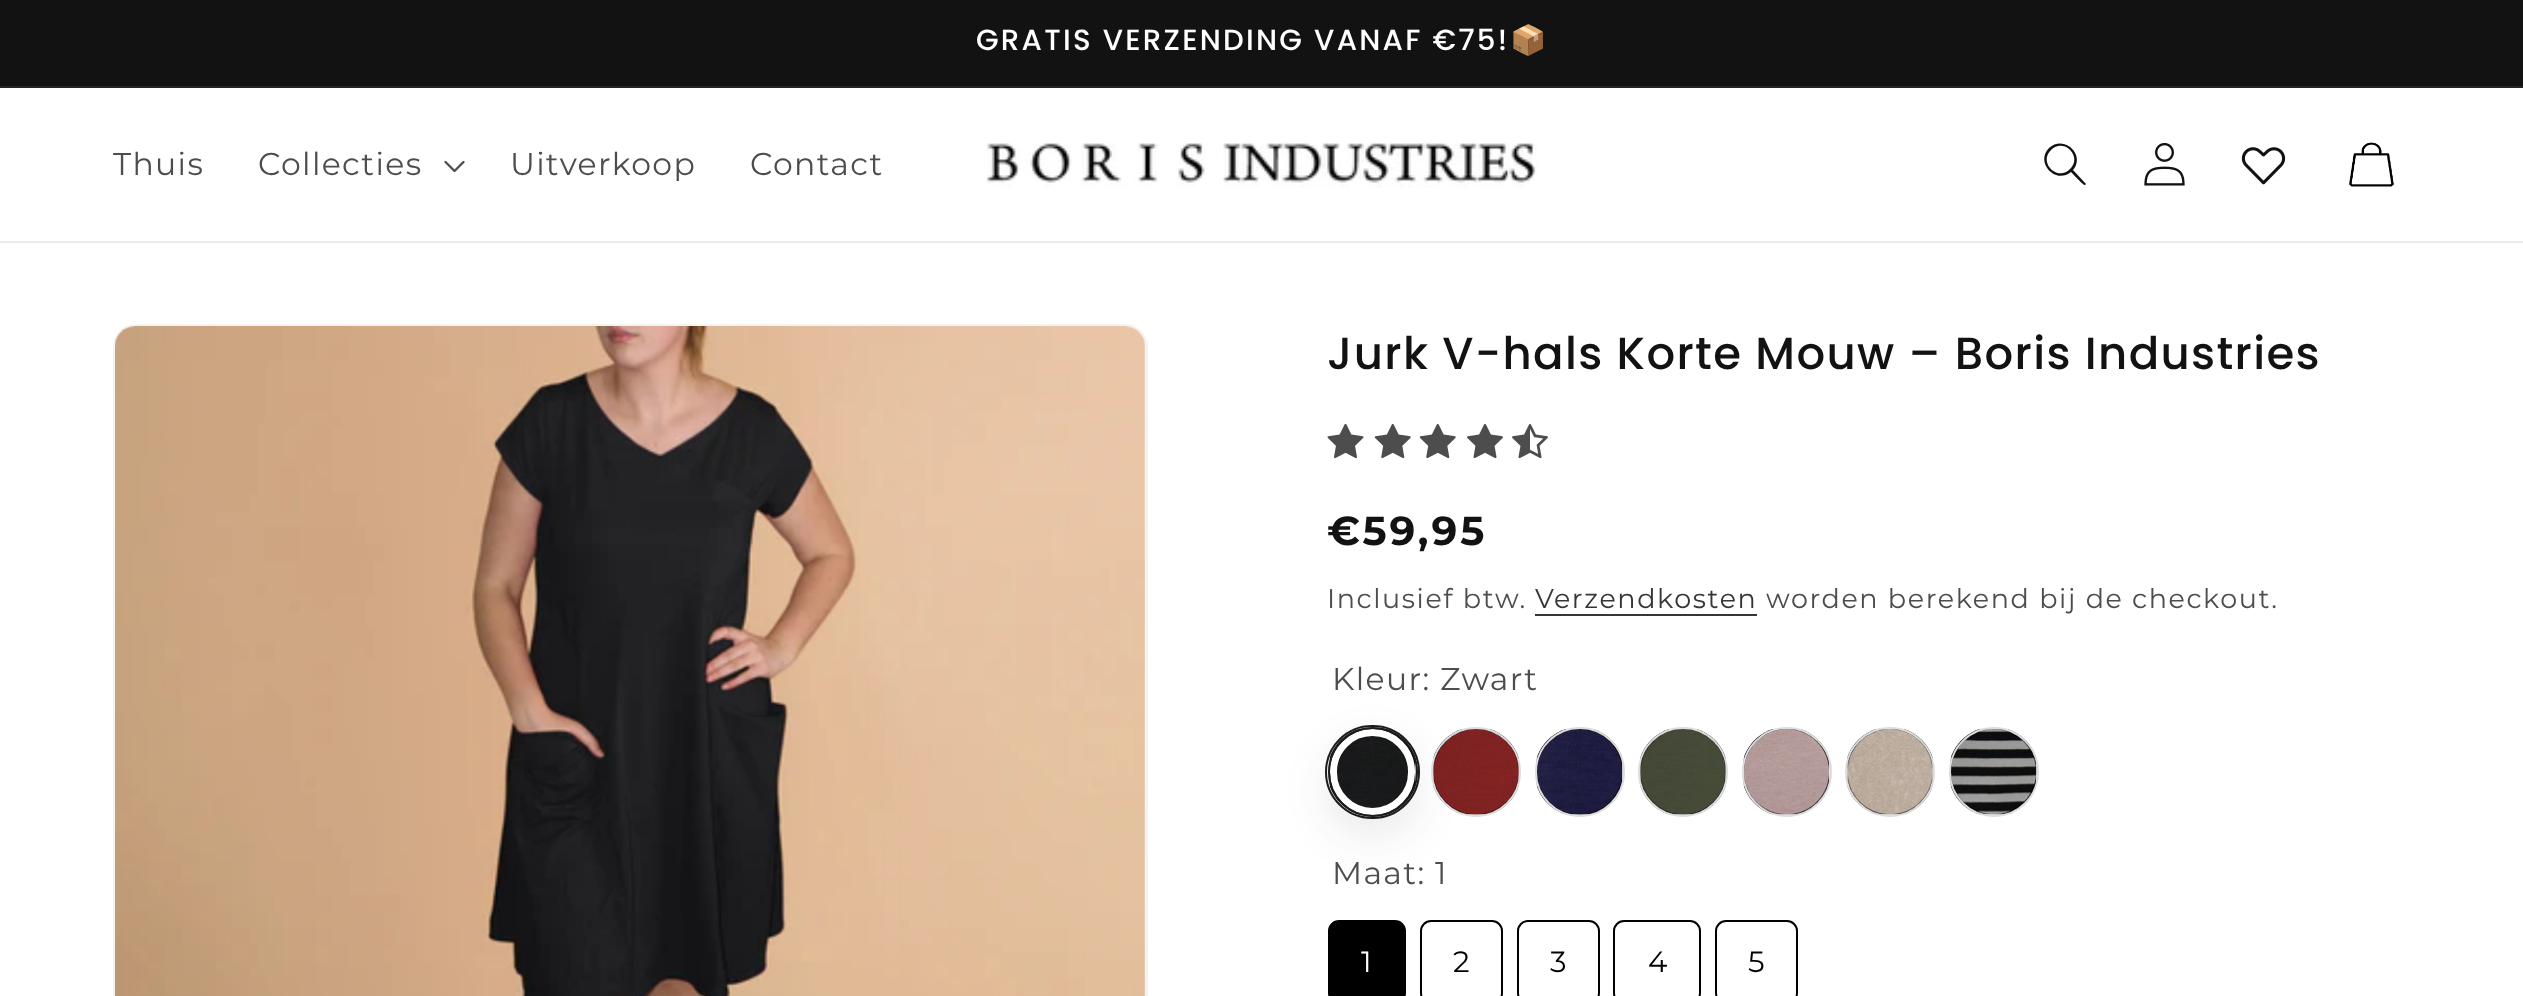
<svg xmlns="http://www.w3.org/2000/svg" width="2523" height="996">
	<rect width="100%" height="100%" fill="#FFFFFF" />
	<rect x="0" y="0" width="2523" height="86" fill="#121212" />
	<rect x="0" y="86" width="2523" height="2" fill="#252525" />
	<text x="976" y="50" font-family="Poppins" font-size="29.25" font-weight="500" letter-spacing="2.25" fill="#FFFFFF">GRATIS VERZENDING VANAF €75!</text>
	<text x="1510" y="50" font-family="Noto Color Emoji" font-size="29.25" letter-spacing="2.25" fill="#FFFFFF">📦</text>
	<rect x="0" y="241" width="2523" height="2" fill="#ECECEC" />
	<g font-family="Montserrat" font-size="31.5" letter-spacing="1.35" fill="#4D4D4D">
		<text x="113" y="175">Thuis</text>
		<text x="258" y="175">Collecties</text>
	</g>
	<image x="444" y="160" width="21" height="13" href="assets/img1.png" />
	<g font-family="Montserrat" font-size="31.5" letter-spacing="1.35" fill="#4D4D4D">
		<text x="510" y="175">Uitverkoop</text>
		<text x="750" y="175">Contact</text>
	</g>
	<image x="986" y="143" width="552" height="45" href="assets/img2.png" />
	<path d="M2070 169C2058 182 2038 163 2051 150C2064 137 2083 157 2070 169ZM2071 172C2055 185 2035 162 2049 148C2064 134 2086 155 2073 170L2086 184L2085 185C2084 186 2073 174 2071 172Z" fill="#121212" fill-rule="evenodd" />
	<image x="2144" y="142" width="41" height="44" href="assets/img3.png" />
	<image x="2241" y="147" width="45" height="38" href="assets/img4.png" />
	<image x="2349" y="142" width="45" height="45" href="assets/img5.png" />
	<rect x="114" y="325" width="1033" height="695" rx="22" fill="none" stroke="#F3F3F3" stroke-width="2" />
	<image x="115" y="326" width="1031" height="670" href="assets/img6.png" />
	<text x="1327" y="369" font-family="Poppins" font-size="45" font-weight="500" letter-spacing="1.35" fill="#121212">Jurk V-hals Korte Mouw – Boris Industries</text>
	<image x="1327" y="423" width="37" height="36" href="assets/img7.png" />
	<image x="1374" y="423" width="37" height="36" href="assets/img8.png" />
	<image x="1419" y="423" width="37" height="36" href="assets/img8.png" />
	<image x="1467" y="423" width="36" height="36" href="assets/img9.png" />
	<image x="1512" y="423" width="36" height="36" href="assets/img10.png" />
	<text x="1327" y="545" font-family="Montserrat" font-size="40.5" font-weight="700" letter-spacing="3" fill="#121212">€59,95</text>
	<text x="1327" y="608" font-family="Montserrat" font-size="27" letter-spacing="1.6" fill="#4D4D4D">Inclusief btw.</text>
	<text x="1535" y="608" font-family="Montserrat" font-size="27" letter-spacing="1.6" fill="#363636">Verzendkosten</text>
	<rect x="1535" y="614" width="222" height="2" fill="#363636" />
	<text x="1766" y="608" font-family="Montserrat" font-size="27" letter-spacing="1.6" fill="#4D4D4D">worden berekend bij de checkout.</text>
	<text x="1332" y="690" font-family="Montserrat" font-size="31.5" letter-spacing="1.35" fill="#4D4D4D">Kleur: Zwart</text>
	<rect x="1328" y="745" width="90" height="90" rx="45" fill="#222222" fill-opacity="0.1" filter="blur(22.5px)" />
	<rect x="1326" y="726" width="93" height="92" rx="46" fill="none" stroke="#1C1C1C" stroke-width="2" />
	<image x="1329" y="729" width="87" height="86" href="assets/img11.png" />
	<rect x="1333.5" y="732.5" width="78" height="79" rx="39" fill="none" stroke="#FFFFFF" stroke-width="7" />
	<circle cx="1373" cy="772" r="44" fill="none" stroke="#1C1C1C" stroke-width="2" />
	<image x="1433" y="729" width="86" height="86" href="assets/img12.png" />
	<circle cx="1476" cy="772" r="44" fill="none" stroke="#DDDDDD" stroke-width="2" />
	<image x="1536" y="729" width="87" height="86" href="assets/img13.png" />
	<circle cx="1580" cy="772" r="44" fill="none" stroke="#DDDDDD" stroke-width="2" />
	<image x="1640" y="729" width="86" height="86" href="assets/img14.png" />
	<circle cx="1683" cy="772" r="44" fill="none" stroke="#DDDDDD" stroke-width="2" />
	<image x="1743" y="729" width="87" height="86" href="assets/img15.png" />
	<circle cx="1787" cy="772" r="44" fill="none" stroke="#DDDDDD" stroke-width="2" />
	<image x="1847" y="729" width="86" height="86" href="assets/img16.png" />
	<circle cx="1890" cy="772" r="44" fill="none" stroke="#DDDDDD" stroke-width="2" />
	<image x="1950" y="729" width="87" height="86" href="assets/img17.png" />
	<circle cx="1994" cy="772" r="44" fill="none" stroke="#DDDDDD" stroke-width="2" />
	<text x="1332" y="884" font-family="Montserrat" font-size="31.5" letter-spacing="1.35" fill="#4D4D4D">Maat: 1</text>
	<rect x="1329" y="921" width="76" height="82" rx="10" fill="#000000" stroke="#000000" stroke-width="2" />
	<text x="1361" y="972" font-family="Montserrat" font-size="29.25" fill="#FFFFFF">1</text>
	<rect x="1421" y="921" width="81" height="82" rx="10" fill="none" stroke="#000000" stroke-width="2" />
	<text x="1453" y="972" font-family="Montserrat" font-size="29.25" fill="#000000">2</text>
	<rect x="1518" y="921" width="81" height="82" rx="10" fill="none" stroke="#000000" stroke-width="2" />
	<text x="1550" y="972" font-family="Montserrat" font-size="29.25" fill="#000000">3</text>
	<rect x="1614" y="921" width="86" height="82" rx="10" fill="none" stroke="#000000" stroke-width="2" />
	<text x="1648" y="972" font-family="Montserrat" font-size="29.25" fill="#000000">4</text>
	<rect x="1716" y="921" width="81" height="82" rx="10" fill="none" stroke="#000000" stroke-width="2" />
	<text x="1748" y="972" font-family="Montserrat" font-size="29.25" fill="#000000">5</text>
</svg>
